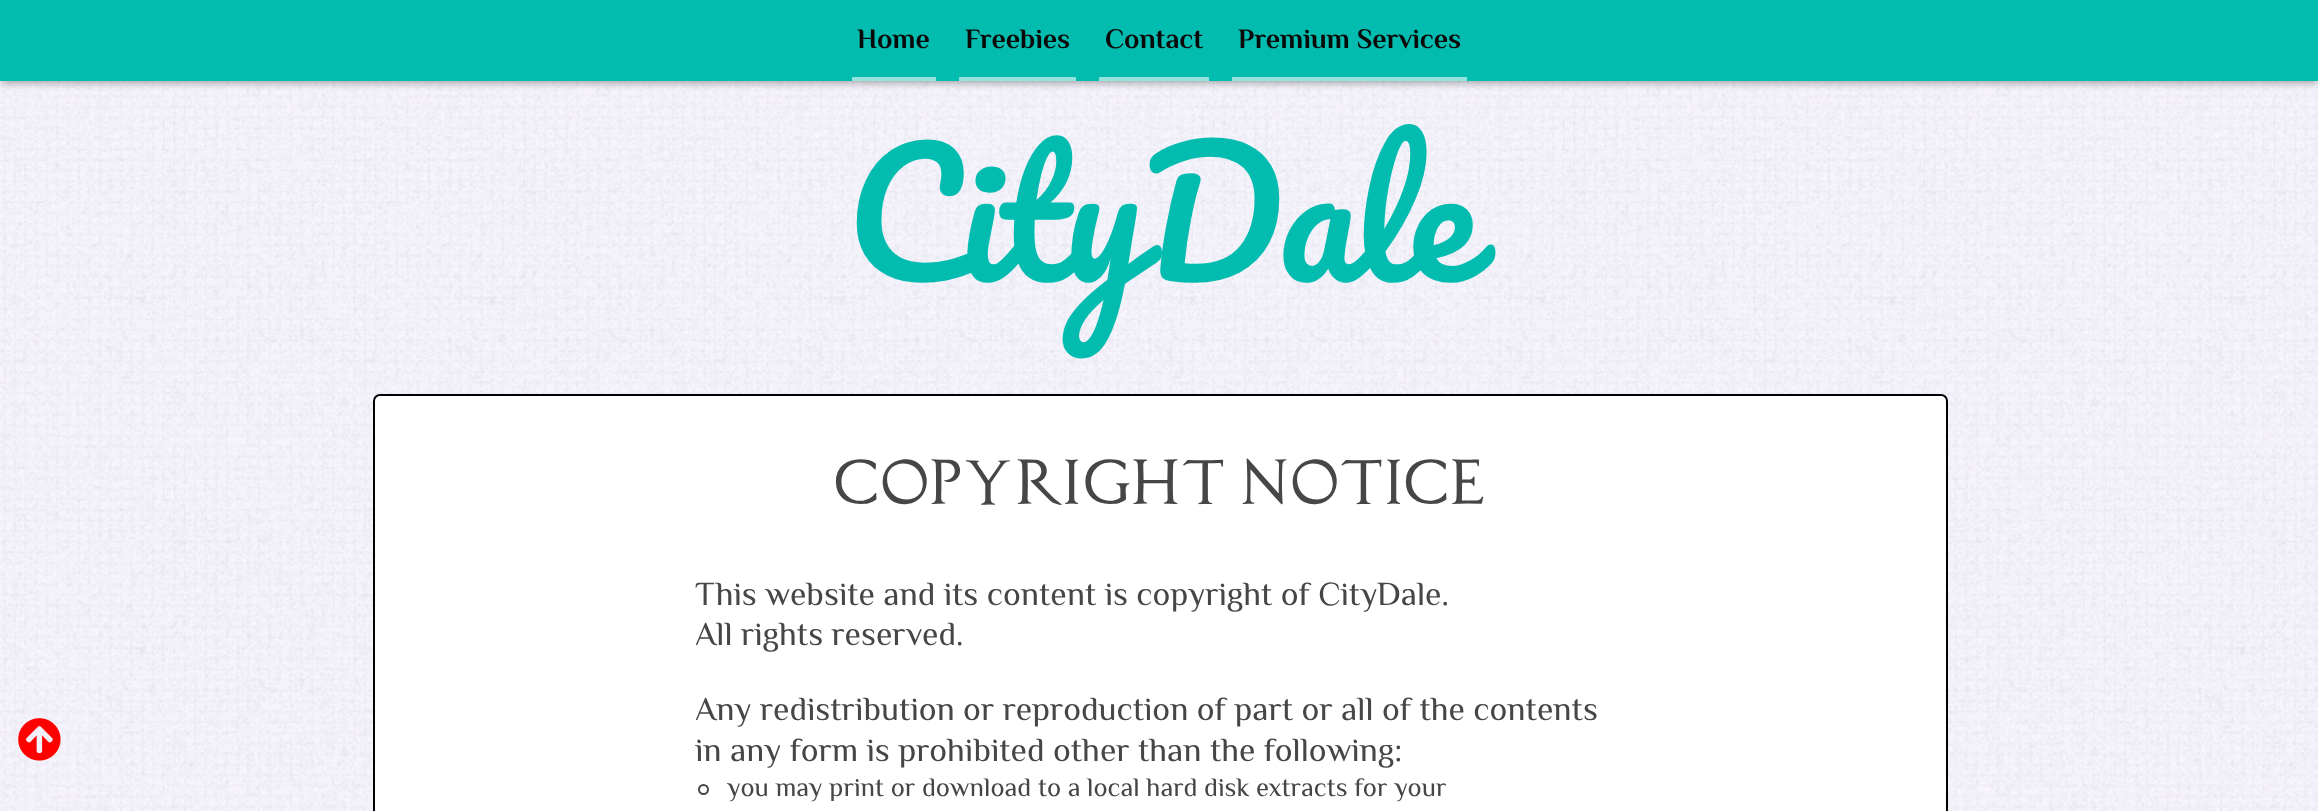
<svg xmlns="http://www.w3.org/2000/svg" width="2318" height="811">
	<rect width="100%" height="100%" fill="#FFFFFF" />
	<image x="0" y="81" width="2318" height="730" href="assets/img1.png" />
	<rect x="2" y="5" width="2315" height="77" fill="#464646" fill-opacity="0.58" filter="blur(4.5px)" />
	<rect x="0" y="0" width="2318" height="81" fill="#02BCAF" />
	<rect x="852" y="77" width="84" height="4" fill="#95E3DD" />
	<text x="857" y="48" font-family="Philosopher" font-size="28" font-weight="700" fill="#090909">Home</text>
	<rect x="959" y="77" width="117" height="4" fill="#95E3DD" />
	<text x="965" y="48" font-family="Philosopher" font-size="28" font-weight="700" fill="#090909">Freebies</text>
	<rect x="1099" y="77" width="110" height="4" fill="#95E3DD" />
	<text x="1105" y="48" font-family="Philosopher" font-size="28" font-weight="700" fill="#090909">Contact</text>
	<rect x="1232" y="77" width="235" height="4" fill="#95E3DD" />
	<text x="1238" y="48" font-family="Philosopher" font-size="28" font-weight="700" fill="#090909">Premium Services</text>
	<text x="846" y="282" font-family="Pacifico" font-size="168" letter-spacing="-1.75" fill="#02BCAF">CityDale</text>
	<image x="18" y="718" width="43" height="43" href="assets/img2.png" />
	<rect x="374" y="395" width="1573" height="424" rx="6" fill="#FFFFFF" stroke="#000000" stroke-width="2" />
	<text x="833" y="504" font-family="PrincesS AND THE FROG" font-size="56" fill="#464646">Copyright Notice</text>
	<g font-family="Philosopher" font-size="33.6" fill="#464646">
		<text x="695" y="605">This website and its content is copyright of CityDale.</text>
		<text x="695" y="645">All rights reserved.</text>
		<text x="695" y="720">Any redistribution or reproduction of part or all of the contents</text>
		<text x="695" y="761">in any form is prohibited other than the following:</text>
	</g>
	<circle cx="703.5" cy="789.5" r="4.5" fill="none" stroke="#464646" stroke-width="2" />
	<text x="727" y="796" font-family="Philosopher" font-size="26.6" fill="#464646">you may print or download to a local hard disk extracts for your</text>
</svg>
